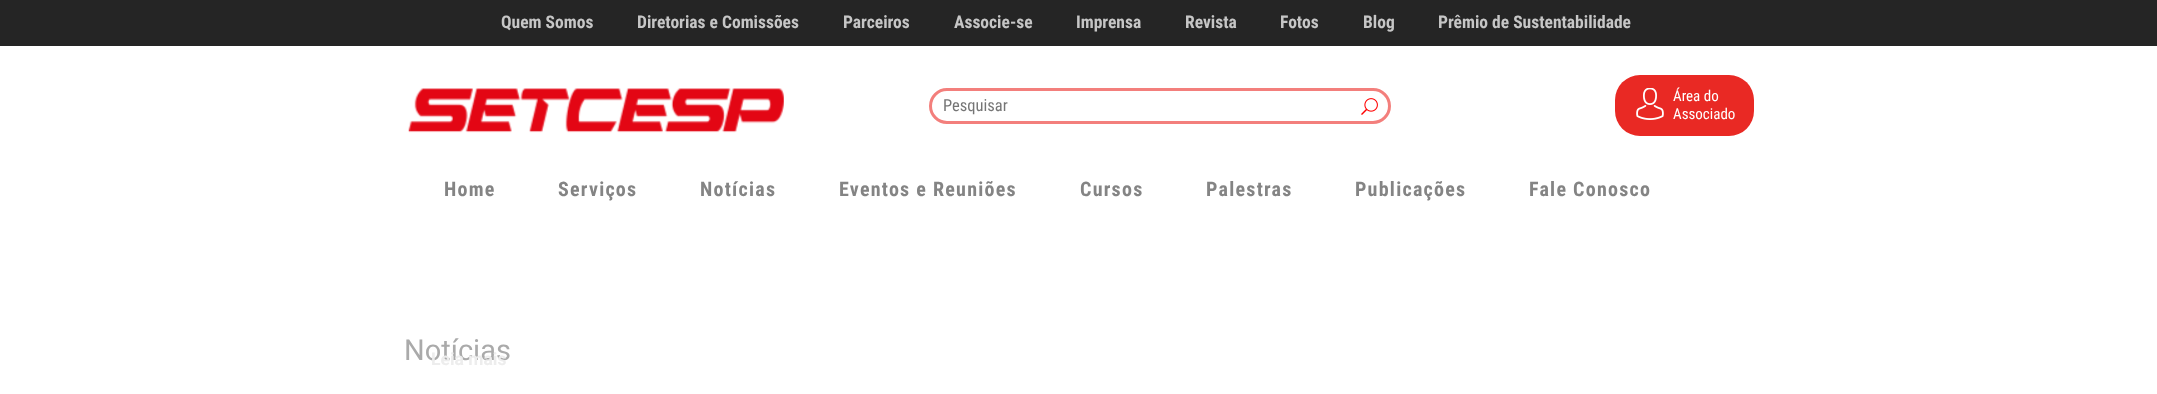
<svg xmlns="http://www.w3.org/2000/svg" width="2157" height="394">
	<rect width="100%" height="100%" fill="#FFFFFF" />
	<rect x="0" y="0" width="2157" height="46" fill="#252525" />
	<g font-family="Roboto Condensed" font-size="17.5" font-weight="700" fill="#C6C6C6">
		<text x="501" y="28">Quem Somos</text>
		<text x="637" y="28">Diretorias e Comissões</text>
		<text x="843" y="28">Parceiros</text>
		<text x="954" y="28">Associe-se</text>
		<text x="1076" y="28">Imprensa</text>
		<text x="1185" y="28">Revista</text>
		<text x="1280" y="28">Fotos</text>
		<text x="1363" y="28">Blog</text>
		<text x="1438" y="28">Prêmio de Sustentabilidade</text>
	</g>
	<image x="408" y="88" width="376" height="45" href="assets/img1.png" />
	<rect x="930.5" y="89.5" width="459" height="33" rx="16.5" fill="none" stroke="#F37F7C" stroke-width="3" />
	<text x="943" y="111" font-family="Roboto Condensed" font-size="16.5" fill="#757575">Pesquisar</text>
	<image x="1361" y="98" width="17" height="17" href="assets/img2.png" />
	<rect x="1615" y="75" width="139" height="61" rx="25" fill="#E92924" />
	<image x="1636" y="88" width="28" height="32" href="assets/img3.png" />
	<g font-family="Roboto Condensed" font-size="15" fill="#FFFFFF">
		<text x="1673" y="101">Área do</text>
		<text x="1673" y="119">Associado</text>
	</g>
	<text x="444" y="196" font-family="Roboto Condensed" font-size="20" font-weight="700" letter-spacing="1.25" fill="#848484">Home</text>
	<text x="404" y="360" font-family="Roboto" font-size="29" fill="#AAAAAA">Notícias</text>
	<text x="431" y="365" font-family="Roboto" font-size="17.5" font-weight="700" fill="#EDEDED">Leia mais</text>
	<g font-family="Roboto Condensed" font-size="20" font-weight="700" letter-spacing="1.25" fill="#848484">
		<text x="558" y="196">Serviços</text>
		<text x="700" y="196">Notícias</text>
		<text x="839" y="196">Eventos e Reuniões</text>
		<text x="1080" y="196">Cursos</text>
		<text x="1206" y="196">Palestras</text>
		<text x="1355" y="196">Publicações</text>
		<text x="1529" y="196">Fale Conosco</text>
	</g>
</svg>
